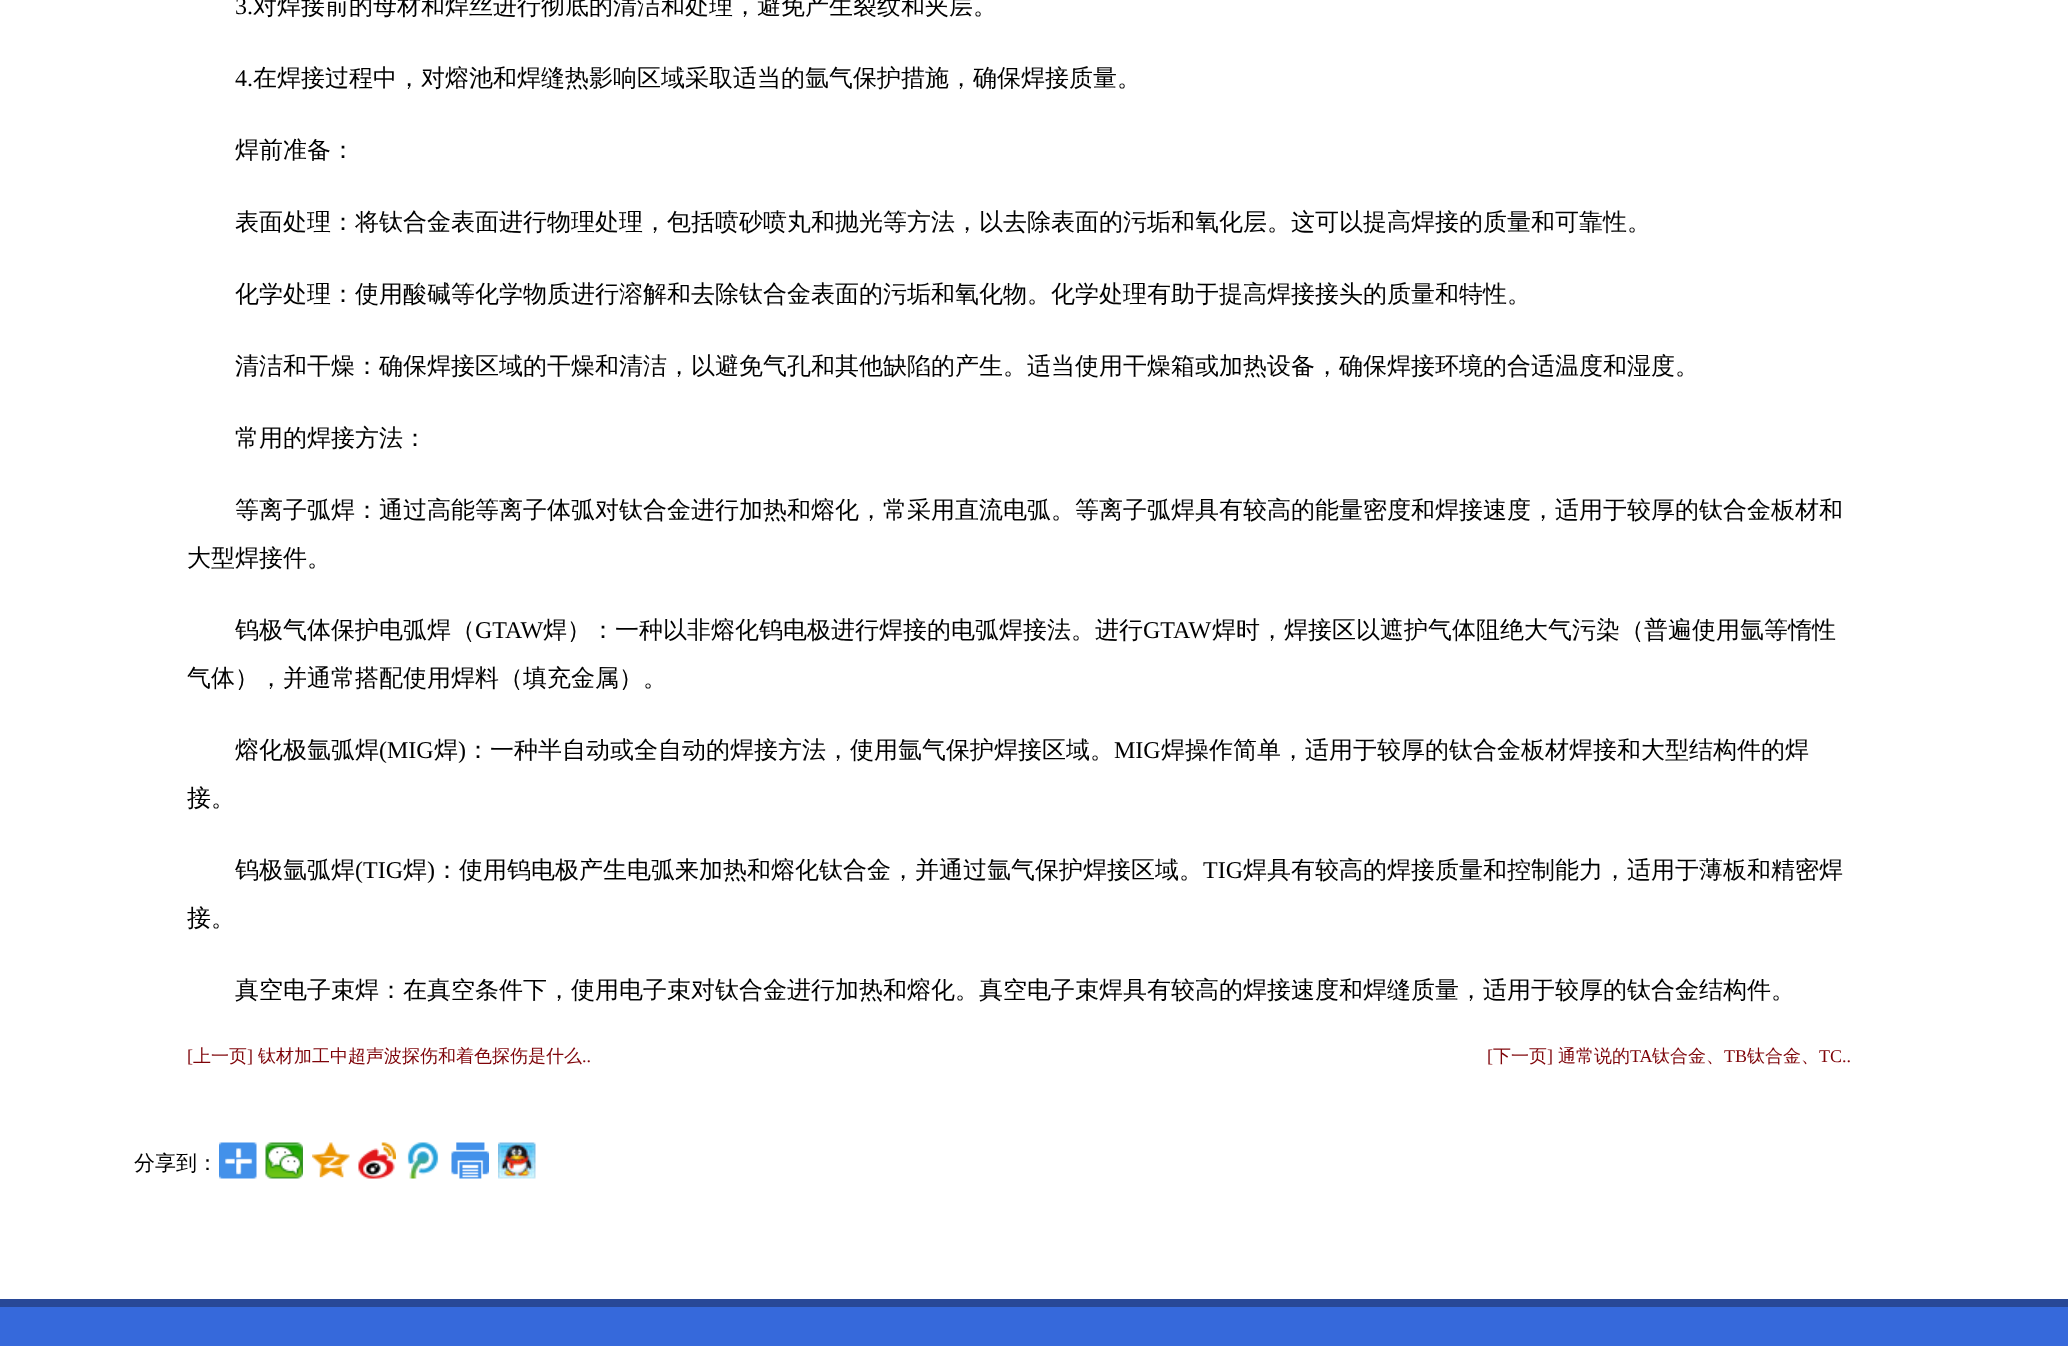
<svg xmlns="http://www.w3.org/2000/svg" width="2068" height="1346">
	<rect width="100%" height="100%" fill="#FFFFFF" />
	<text x="235" y="14" font-family="Liberation Serif" font-size="24" fill="#000000">3.</text>
	<text x="253" y="14" font-family="WenQuanYi Zen Hei" font-size="24" font-weight="500" fill="#000000">对焊接前的母材和焊丝进行彻底的清洁和处理，避免产生裂纹和夹层。</text>
	<text x="235" y="86" font-family="Liberation Serif" font-size="24" fill="#000000">4.</text>
	<g font-family="WenQuanYi Zen Hei" font-size="24" font-weight="500" fill="#000000">
		<text x="253" y="86">在焊接过程中，对熔池和焊缝热影响区域采取适当的氩气保护措施，确保焊接质量。</text>
		<text x="235" y="158">焊前准备：</text>
		<text x="235" y="230">表面处理：将钛合金表面进行物理处理，包括喷砂喷丸和抛光等方法，以去除表面的污垢和氧化层。这可以提高焊接的质量和可靠性。</text>
		<text x="235" y="302">化学处理：使用酸碱等化学物质进行溶解和去除钛合金表面的污垢和氧化物。化学处理有助于提高焊接接头的质量和特性。</text>
		<text x="235" y="374">清洁和干燥：确保焊接区域的干燥和清洁，以避免气孔和其他缺陷的产生。适当使用干燥箱或加热设备，确保焊接环境的合适温度和湿度。</text>
		<text x="235" y="446">常用的焊接方法：</text>
		<text x="235" y="518">等离子弧焊：通过高能等离子体弧对钛合金进行加热和熔化，常采用直流电弧。等离子弧焊具有较高的能量密度和焊接速度，适用于较厚的钛合金板材和</text>
		<text x="187" y="566">大型焊接件。</text>
		<text x="235" y="638">钨极气体保护电弧焊（</text>
	</g>
	<text x="475" y="638" font-family="Liberation Serif" font-size="24" fill="#000000">GTAW</text>
	<text x="543" y="638" font-family="WenQuanYi Zen Hei" font-size="24" font-weight="500" fill="#000000">焊）：一种以非熔化钨电极进行焊接的电弧焊接法。进行</text>
	<text x="1143" y="638" font-family="Liberation Serif" font-size="24" fill="#000000">GTAW</text>
	<g font-family="WenQuanYi Zen Hei" font-size="24" font-weight="500" fill="#000000">
		<text x="1212" y="638">焊时，焊接区以遮护气体阻绝大气污染（普遍使用氩等惰性</text>
		<text x="187" y="686">气体），并通常搭配使用焊料（填充金属）。</text>
		<text x="235" y="758">熔化极氩弧焊</text>
	</g>
	<text x="379" y="758" font-family="Liberation Serif" font-size="24" fill="#000000">(MIG</text>
	<text x="434" y="758" font-family="WenQuanYi Zen Hei" font-size="24" font-weight="500" fill="#000000">焊</text>
	<text x="458" y="758" font-family="Liberation Serif" font-size="24" fill="#000000">)</text>
	<text x="466" y="758" font-family="WenQuanYi Zen Hei" font-size="24" font-weight="500" fill="#000000">：一种半自动或全自动的焊接方法，使用氩气保护焊接区域。</text>
	<text x="1114" y="758" font-family="Liberation Serif" font-size="24" fill="#000000">MIG</text>
	<g font-family="WenQuanYi Zen Hei" font-size="24" font-weight="500" fill="#000000">
		<text x="1161" y="758">焊操作简单，适用于较厚的钛合金板材焊接和大型结构件的焊</text>
		<text x="187" y="806">接。</text>
		<text x="235" y="878">钨极氩弧焊</text>
	</g>
	<text x="355" y="878" font-family="Liberation Serif" font-size="24" fill="#000000">(TIG</text>
	<text x="403" y="878" font-family="WenQuanYi Zen Hei" font-size="24" font-weight="500" fill="#000000">焊</text>
	<text x="427" y="878" font-family="Liberation Serif" font-size="24" fill="#000000">)</text>
	<text x="435" y="878" font-family="WenQuanYi Zen Hei" font-size="24" font-weight="500" fill="#000000">：使用钨电极产生电弧来加热和熔化钛合金，并通过氩气保护焊接区域。</text>
	<text x="1203" y="878" font-family="Liberation Serif" font-size="24" fill="#000000">TIG</text>
	<g font-family="WenQuanYi Zen Hei" font-size="24" font-weight="500" fill="#000000">
		<text x="1243" y="878">焊具有较高的焊接质量和控制能力，适用于薄板和精密焊</text>
		<text x="187" y="926">接。</text>
		<text x="235" y="998">真空电子束焊：在真空条件下，使用电子束对钛合金进行加热和熔化。真空电子束焊具有较高的焊接速度和焊缝质量，适用于较厚的钛合金结构件。</text>
	</g>
	<text x="187" y="1062" font-family="Liberation Serif" font-size="18" fill="#7E0308">[</text>
	<text x="193" y="1062" font-family="WenQuanYi Zen Hei" font-size="18" font-weight="500" fill="#7E0308">上一页</text>
	<text x="247" y="1062" font-family="Liberation Serif" font-size="18" fill="#7E0308">]</text>
	<text x="258" y="1062" font-family="WenQuanYi Zen Hei" font-size="18" font-weight="500" fill="#7E0308">钛材加工中超声波探伤和着色探伤是什么</text>
	<g font-family="Liberation Serif" font-size="18" fill="#7E0308">
		<text x="582" y="1062">..</text>
		<text x="1487" y="1062">[</text>
	</g>
	<text x="1493" y="1062" font-family="WenQuanYi Zen Hei" font-size="18" font-weight="500" fill="#7E0308">下一页</text>
	<text x="1547" y="1062" font-family="Liberation Serif" font-size="18" fill="#7E0308">]</text>
	<text x="1558" y="1062" font-family="WenQuanYi Zen Hei" font-size="18" font-weight="500" fill="#7E0308">通常说的</text>
	<text x="1630" y="1062" font-family="Liberation Serif" font-size="18" fill="#7E0308">TA</text>
	<text x="1652" y="1062" font-family="WenQuanYi Zen Hei" font-size="18" font-weight="500" fill="#7E0308">钛合金、</text>
	<text x="1724" y="1062" font-family="Liberation Serif" font-size="18" fill="#7E0308">TB</text>
	<text x="1747" y="1062" font-family="WenQuanYi Zen Hei" font-size="18" font-weight="500" fill="#7E0308">钛合金、</text>
	<text x="1819" y="1062" font-family="Liberation Serif" font-size="18" fill="#7E0308">TC..</text>
	<text x="134" y="1170" font-family="WenQuanYi Zen Hei" font-size="21" font-weight="500" fill="#000000">分享到：</text>
	<image x="219" y="1142" width="38" height="37" href="assets/img1.png" />
	<image x="265" y="1142" width="38" height="37" href="assets/img2.png" />
	<image x="312" y="1142" width="38" height="36" href="assets/img3.png" />
	<image x="358" y="1142" width="38" height="37" href="assets/img4.png" />
	<image x="407" y="1142" width="32" height="37" href="assets/img5.png" />
	<image x="451" y="1142" width="38" height="37" href="assets/img6.png" />
	<image x="498" y="1142" width="38" height="37" href="assets/img7.png" />
	<rect x="0" y="1307" width="2068" height="39" fill="#3669DB" />
	<rect x="0" y="1299" width="2068" height="8" fill="#284897" />
</svg>
